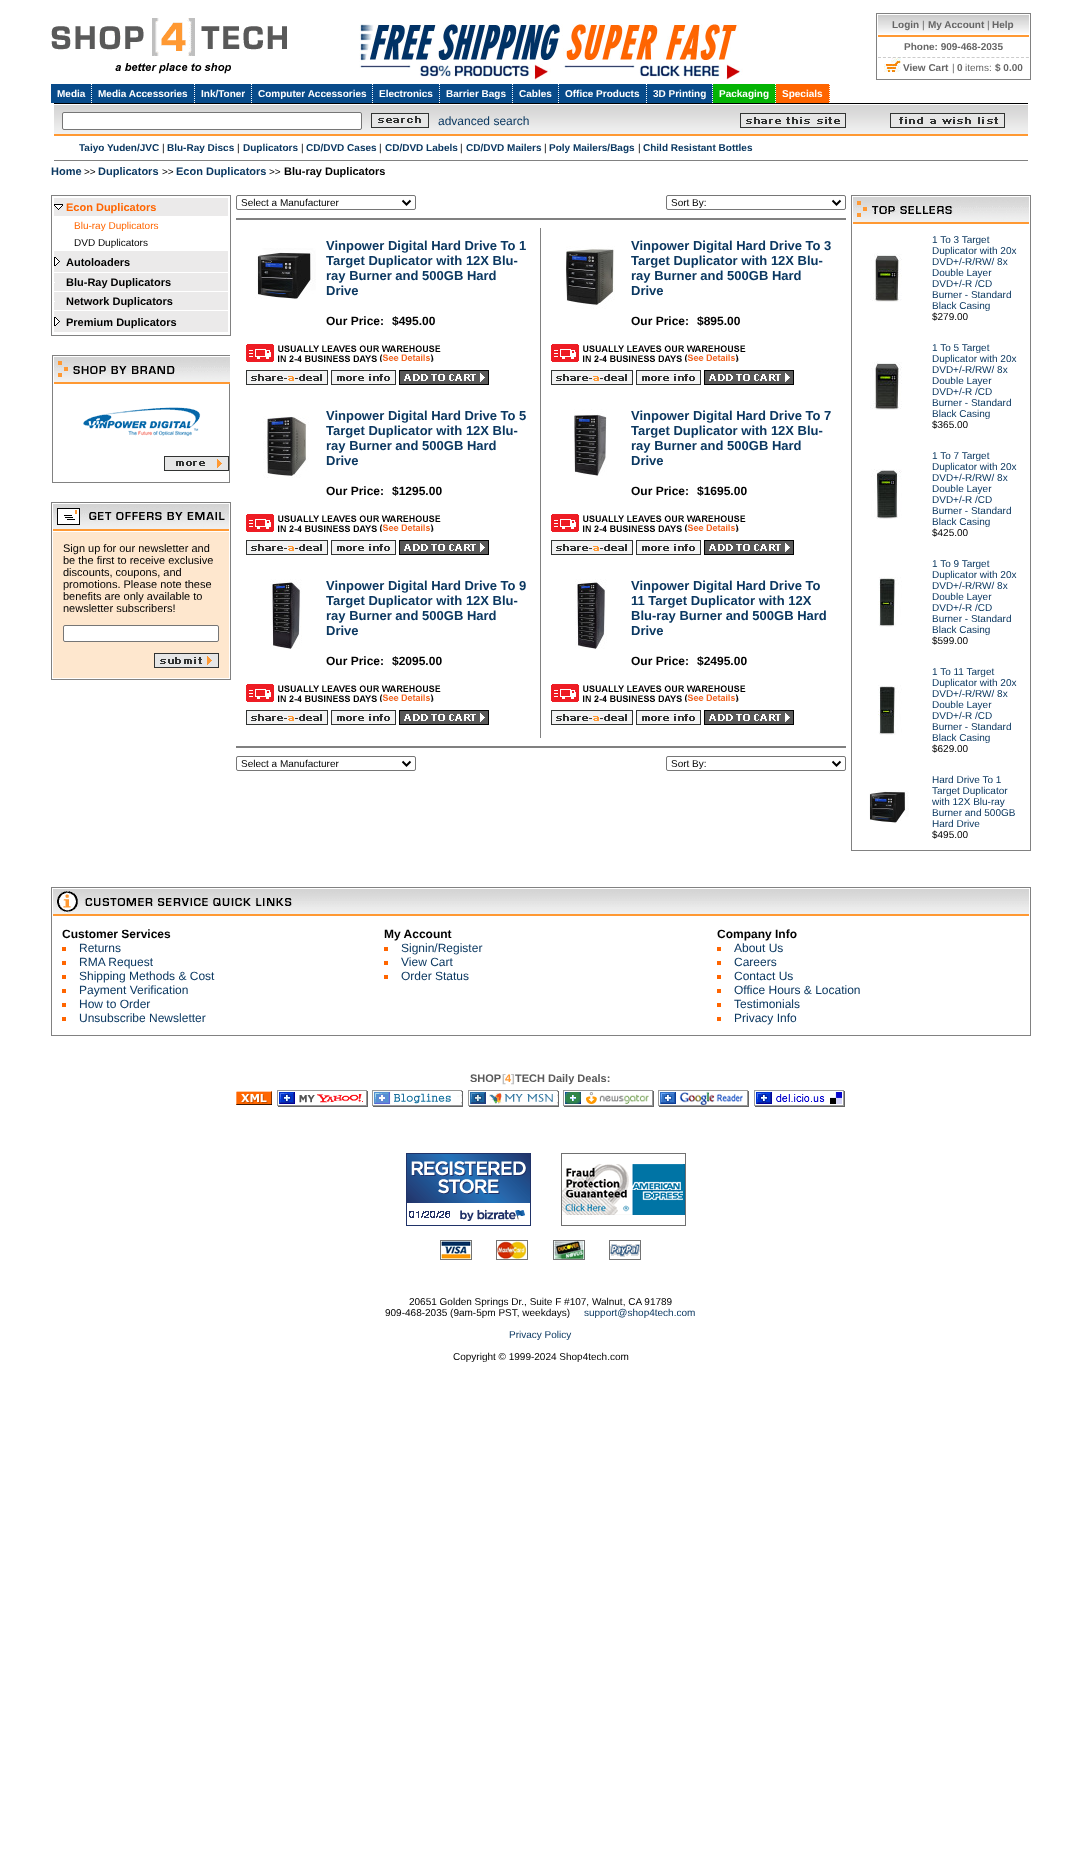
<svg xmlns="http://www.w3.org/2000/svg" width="1081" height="1862">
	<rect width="100%" height="100%" fill="#FFFFFF" />
	<image x="51" y="18" width="236" height="56" href="assets/img1.png" />
	<image x="359" y="24" width="384" height="56" href="assets/img2.png" />
	<rect x="876.5" y="13.5" width="154" height="66" fill="none" stroke="#818181" />
	<image x="878" y="15" width="151" height="19" href="assets/img3.png" />
	<text x="892" y="28" font-family="Liberation Sans" font-size="10" font-weight="700" fill="#666666">Login</text>
	<text x="922" y="28" font-family="Liberation Sans" font-size="10" fill="#666666">|</text>
	<text x="928" y="28" font-family="Liberation Sans" font-size="10" font-weight="700" fill="#666666">My Account</text>
	<text x="987" y="28" font-family="Liberation Sans" font-size="10" fill="#666666">|</text>
	<text x="992" y="28" font-family="Liberation Sans" font-size="10" font-weight="700" fill="#666666">Help</text>
	<rect x="878" y="35" width="151" height="2" fill="#FF9933" />
	<path d="M878 57.5H1029" fill="none" stroke="#CCCCCC" stroke-dasharray="3 1.93" />
	<text x="904" y="50" font-family="Liberation Sans" font-size="10" font-weight="700" fill="#666666">Phone: 909-468-2035</text>
	<image x="884" y="58" width="17" height="14" href="assets/img4.png" />
	<text x="903" y="71" font-family="Liberation Sans" font-size="10" font-weight="700" fill="#666666">View Cart</text>
	<text x="952" y="71" font-family="Liberation Sans" font-size="10" fill="#666666">|</text>
	<text x="957" y="71" font-family="Liberation Sans" font-size="10" font-weight="700" fill="#666666">0</text>
	<text x="965" y="71" font-family="Liberation Sans" font-size="10" fill="#666666">items:</text>
	<text x="995" y="71" font-family="Liberation Sans" font-size="10" font-weight="700" fill="#666666">$ 0.00</text>
	<rect x="51" y="84" width="662" height="19" fill="#084B8A" />
	<path d="M91.5 84V103" fill="none" stroke="#FFFFFF" stroke-dasharray="1 1" />
	<text x="57" y="97" font-family="Liberation Sans" font-size="10" font-weight="700" fill="#FFFFFF">Media</text>
	<path d="M194.5 84V103M251.5 84V103" fill="none" stroke="#FFFFFF" stroke-dasharray="1 1" />
	<g font-family="Liberation Sans" font-size="10" font-weight="700" fill="#FFFFFF">
		<text x="98" y="97">Media Accessories</text>
		<text x="201" y="97">Ink/Toner</text>
	</g>
	<path d="M372.5 84V103" fill="none" stroke="#FFFFFF" stroke-dasharray="1 1" />
	<text x="258" y="97" font-family="Liberation Sans" font-size="10" font-weight="700" fill="#FFFFFF">Computer Accessories</text>
	<path d="M439.5 84V103" fill="none" stroke="#FFFFFF" stroke-dasharray="1 1" />
	<text x="379" y="97" font-family="Liberation Sans" font-size="10" font-weight="700" fill="#FFFFFF">Electronics</text>
	<path d="M512.5 84V103M558.5 84V103" fill="none" stroke="#FFFFFF" stroke-dasharray="1 1" />
	<g font-family="Liberation Sans" font-size="10" font-weight="700" fill="#FFFFFF">
		<text x="446" y="97">Barrier Bags</text>
		<text x="519" y="97">Cables</text>
	</g>
	<path d="M646.5 84V103" fill="none" stroke="#FFFFFF" stroke-dasharray="1 1" />
	<text x="565" y="97" font-family="Liberation Sans" font-size="10" font-weight="700" fill="#FFFFFF">Office Products</text>
	<path d="M712.5 84V103" fill="none" stroke="#FFFFFF" stroke-dasharray="1 1" />
	<text x="653" y="97" font-family="Liberation Sans" font-size="10" font-weight="700" fill="#FFFFFF">3D Printing</text>
	<rect x="713" y="84" width="63" height="19" fill="#04B404" />
	<path d="M775.5 84V103" fill="none" stroke="#FFFFFF" stroke-dasharray="1 1" />
	<text x="719" y="97" font-family="Liberation Sans" font-size="10" font-weight="700" fill="#FFFFFF">Packaging</text>
	<rect x="776" y="84" width="54" height="19" fill="#FF6500" />
	<path d="M829.5 84V103" fill="none" stroke="#FFFFFF" stroke-dasharray="1 1" />
	<text x="782" y="97" font-family="Liberation Sans" font-size="10" font-weight="700" fill="#FFFFFF">Specials</text>
	<image x="54" y="103" width="974" height="58" href="assets/img5.png" />
	<rect x="62.5" y="112.5" width="299" height="17" rx="1.5" fill="#FFFFFF" stroke="#767676" />
	<image x="371" y="113" width="58" height="15" href="assets/img6.png" />
	<text x="438" y="125" font-family="Liberation Sans" font-size="12" fill="#0B3861">advanced search</text>
	<image x="740" y="113" width="106" height="15" href="assets/img7.png" />
	<image x="890" y="113" width="115" height="15" href="assets/img8.png" />
	<text x="79" y="151" font-family="Liberation Sans" font-size="10" font-weight="700" fill="#0B3861">Taiyo Yuden/JVC</text>
	<text x="162" y="151" font-family="Liberation Sans" font-size="10" fill="#000000">|</text>
	<text x="167" y="151" font-family="Liberation Sans" font-size="10" font-weight="700" fill="#0B3861">Blu-Ray Discs</text>
	<text x="237" y="151" font-family="Liberation Sans" font-size="10" fill="#000000">|</text>
	<text x="243" y="151" font-family="Liberation Sans" font-size="10" font-weight="700" fill="#0B3861">Duplicators</text>
	<text x="301" y="151" font-family="Liberation Sans" font-size="10" fill="#000000">|</text>
	<text x="306" y="151" font-family="Liberation Sans" font-size="10" font-weight="700" fill="#0B3861">CD/DVD Cases</text>
	<text x="379" y="151" font-family="Liberation Sans" font-size="10" fill="#000000">|</text>
	<text x="385" y="151" font-family="Liberation Sans" font-size="10" font-weight="700" fill="#0B3861">CD/DVD Labels</text>
	<text x="460" y="151" font-family="Liberation Sans" font-size="10" fill="#000000">|</text>
	<text x="466" y="151" font-family="Liberation Sans" font-size="10" font-weight="700" fill="#0B3861">CD/DVD Mailers</text>
	<text x="544" y="151" font-family="Liberation Sans" font-size="10" fill="#000000">|</text>
	<text x="549" y="151" font-family="Liberation Sans" font-size="10" font-weight="700" fill="#0B3861">Poly Mailers/Bags</text>
	<text x="638" y="151" font-family="Liberation Sans" font-size="10" fill="#000000">|</text>
	<text x="643" y="151" font-family="Liberation Sans" font-size="10" font-weight="700" fill="#0B3861">Child Resistant Bottles</text>
	<text x="51" y="175" font-family="Liberation Sans" font-size="11" font-weight="700" fill="#0B3861">Home</text>
	<text x="84" y="175" font-family="Liberation Sans" font-size="10" fill="#000000">&gt;&gt;</text>
	<text x="98" y="175" font-family="Liberation Sans" font-size="11" font-weight="700" fill="#0B3861">Duplicators</text>
	<text x="162" y="175" font-family="Liberation Sans" font-size="10" fill="#000000">&gt;&gt;</text>
	<text x="176" y="175" font-family="Liberation Sans" font-size="11" font-weight="700" fill="#0B3861">Econ Duplicators</text>
	<text x="269" y="175" font-family="Liberation Sans" font-size="10" fill="#000000">&gt;&gt;</text>
	<text x="284" y="175" font-family="Liberation Sans" font-size="11" font-weight="700" fill="#000000">Blu-ray Duplicators</text>
	<rect x="51.5" y="195.5" width="179" height="140" fill="none" stroke="#818181" />
	<rect x="54" y="198" width="174" height="18" fill="#EBEAEA" />
	<image x="54" y="204" width="9" height="6" href="assets/img9.png" />
	<text x="66" y="211" font-family="Liberation Sans" font-size="11" font-weight="700" fill="#FF6500">Econ Duplicators</text>
	<text x="74" y="229" font-family="Liberation Sans" font-size="10" fill="#FF6500">Blu-ray Duplicators</text>
	<text x="74" y="246" font-family="Liberation Sans" font-size="10" fill="#000000">DVD Duplicators</text>
	<rect x="54" y="251" width="174" height="21" fill="#EBEAEA" />
	<image x="54" y="257" width="6" height="9" href="assets/img10.png" />
	<text x="66" y="266" font-family="Liberation Sans" font-size="11" font-weight="700" fill="#000000">Autoloaders</text>
	<rect x="54" y="273" width="174" height="18" fill="#EBEAEA" />
	<rect x="54" y="282" width="1" height="1" fill="#FFFFFF" />
	<text x="66" y="286" font-family="Liberation Sans" font-size="11" font-weight="700" fill="#000000">Blu-Ray Duplicators</text>
	<rect x="54" y="292" width="174" height="18" fill="#EBEAEA" />
	<rect x="54" y="301" width="1" height="1" fill="#FFFFFF" />
	<text x="66" y="305" font-family="Liberation Sans" font-size="11" font-weight="700" fill="#000000">Network Duplicators</text>
	<rect x="54" y="311" width="174" height="21" fill="#EBEAEA" />
	<image x="54" y="317" width="6" height="9" href="assets/img10.png" />
	<text x="66" y="326" font-family="Liberation Sans" font-size="11" font-weight="700" fill="#000000">Premium Duplicators</text>
	<rect x="52.5" y="355.5" width="177" height="127" fill="none" stroke="#818181" />
	<image x="54" y="356" width="176" height="28" href="assets/img11.png" />
	<image x="83" y="407" width="118" height="30" href="assets/img12.png" />
	<image x="164" y="456" width="65" height="15" href="assets/img13.png" />
	<rect x="51.5" y="502.5" width="179" height="177" fill="none" stroke="#818181" />
	<image x="53" y="504" width="176" height="27" href="assets/img14.png" />
	<rect x="53" y="532" width="176" height="146" fill="#FEE7CE" />
	<g font-family="Liberation Sans" font-size="11" fill="#000000">
		<text x="63" y="552">Sign up for our newsletter and</text>
		<text x="63" y="564">be the first to receive exclusive</text>
		<text x="63" y="576">discounts, coupons, and</text>
		<text x="63" y="588">promotions. Please note these</text>
		<text x="63" y="600">benefits are only available to</text>
		<text x="63" y="612">newsletter subscribers!</text>
	</g>
	<rect x="63.5" y="625.5" width="155" height="16" rx="1.5" fill="#FFFFFF" stroke="#767676" />
	<image x="154" y="653" width="65" height="15" href="assets/img15.png" />
	<rect x="236.5" y="195.5" width="179" height="14" rx="1.5" fill="none" stroke="#767676" />
	<path d="M402.5 200.5L406.5 204.5L410.5 200.5" fill="none" stroke="#000000" stroke-width="2" />
	<text x="241" y="206" font-family="Liberation Sans" font-size="10" fill="#000000">Select a Manufacturer</text>
	<rect x="666.5" y="195.5" width="179" height="14" rx="1.5" fill="none" stroke="#767676" />
	<path d="M832.5 200.5L836.5 204.5L840.5 200.5" fill="none" stroke="#000000" stroke-width="2" />
	<text x="671" y="206" font-family="Liberation Sans" font-size="10" fill="#000000">Sort By:</text>
	<rect x="236" y="218" width="610" height="2" fill="#808080" />
	<rect x="540" y="228" width="1" height="510" fill="#818181" />
	<image x="255" y="248" width="61" height="51" href="assets/img16.png" />
	<g font-family="Liberation Sans" font-size="13" font-weight="700" fill="#0B3861">
		<text x="326" y="250">Vinpower Digital Hard Drive To 1</text>
		<text x="326" y="265">Target Duplicator with 12X Blu-</text>
		<text x="326" y="280">ray Burner and 500GB Hard</text>
		<text x="326" y="295">Drive</text>
	</g>
	<g font-family="Liberation Sans" font-size="12" font-weight="700" fill="#000000">
		<text x="326" y="325">Our Price:</text>
		<text x="392" y="325">$495.00</text>
	</g>
	<image x="246" y="344" width="195" height="18" href="assets/img17.png" />
	<image x="246" y="370" width="82" height="15" href="assets/img18.png" />
	<image x="331" y="370" width="65" height="15" href="assets/img19.png" />
	<image x="399" y="370" width="90" height="15" href="assets/img20.png" />
	<image x="263" y="416" width="46" height="62" href="assets/img21.png" />
	<g font-family="Liberation Sans" font-size="13" font-weight="700" fill="#0B3861">
		<text x="326" y="420">Vinpower Digital Hard Drive To 5</text>
		<text x="326" y="435">Target Duplicator with 12X Blu-</text>
		<text x="326" y="450">ray Burner and 500GB Hard</text>
		<text x="326" y="465">Drive</text>
	</g>
	<g font-family="Liberation Sans" font-size="12" font-weight="700" fill="#000000">
		<text x="326" y="495">Our Price:</text>
		<text x="392" y="495">$1295.00</text>
	</g>
	<image x="246" y="514" width="195" height="18" href="assets/img17.png" />
	<image x="246" y="540" width="82" height="15" href="assets/img18.png" />
	<image x="331" y="540" width="65" height="15" href="assets/img19.png" />
	<image x="399" y="540" width="90" height="15" href="assets/img20.png" />
	<image x="270" y="579" width="32" height="70" href="assets/img22.png" />
	<g font-family="Liberation Sans" font-size="13" font-weight="700" fill="#0B3861">
		<text x="326" y="590">Vinpower Digital Hard Drive To 9</text>
		<text x="326" y="605">Target Duplicator with 12X Blu-</text>
		<text x="326" y="620">ray Burner and 500GB Hard</text>
		<text x="326" y="635">Drive</text>
	</g>
	<g font-family="Liberation Sans" font-size="12" font-weight="700" fill="#000000">
		<text x="326" y="665">Our Price:</text>
		<text x="392" y="665">$2095.00</text>
	</g>
	<image x="246" y="684" width="195" height="18" href="assets/img17.png" />
	<image x="246" y="710" width="82" height="15" href="assets/img18.png" />
	<image x="331" y="710" width="65" height="15" href="assets/img19.png" />
	<image x="399" y="710" width="90" height="15" href="assets/img20.png" />
	<image x="566" y="246" width="49" height="63" href="assets/img23.png" />
	<g font-family="Liberation Sans" font-size="13" font-weight="700" fill="#0B3861">
		<text x="631" y="250">Vinpower Digital Hard Drive To 3</text>
		<text x="631" y="265">Target Duplicator with 12X Blu-</text>
		<text x="631" y="280">ray Burner and 500GB Hard</text>
		<text x="631" y="295">Drive</text>
	</g>
	<g font-family="Liberation Sans" font-size="12" font-weight="700" fill="#000000">
		<text x="631" y="325">Our Price:</text>
		<text x="697" y="325">$895.00</text>
	</g>
	<image x="551" y="344" width="195" height="18" href="assets/img17.png" />
	<image x="551" y="370" width="82" height="15" href="assets/img18.png" />
	<image x="636" y="370" width="65" height="15" href="assets/img19.png" />
	<image x="704" y="370" width="90" height="15" href="assets/img20.png" />
	<image x="574" y="409" width="33" height="67" href="assets/img24.png" />
	<g font-family="Liberation Sans" font-size="13" font-weight="700" fill="#0B3861">
		<text x="631" y="420">Vinpower Digital Hard Drive To 7</text>
		<text x="631" y="435">Target Duplicator with 12X Blu-</text>
		<text x="631" y="450">ray Burner and 500GB Hard</text>
		<text x="631" y="465">Drive</text>
	</g>
	<g font-family="Liberation Sans" font-size="12" font-weight="700" fill="#000000">
		<text x="631" y="495">Our Price:</text>
		<text x="697" y="495">$1695.00</text>
	</g>
	<image x="551" y="514" width="195" height="18" href="assets/img17.png" />
	<image x="551" y="540" width="82" height="15" href="assets/img18.png" />
	<image x="636" y="540" width="65" height="15" href="assets/img19.png" />
	<image x="704" y="540" width="90" height="15" href="assets/img20.png" />
	<image x="575" y="579" width="32" height="70" href="assets/img25.png" />
	<g font-family="Liberation Sans" font-size="13" font-weight="700" fill="#0B3861">
		<text x="631" y="590">Vinpower Digital Hard Drive To</text>
		<text x="631" y="605">11 Target Duplicator with 12X</text>
		<text x="631" y="620">Blu-ray Burner and 500GB Hard</text>
		<text x="631" y="635">Drive</text>
	</g>
	<g font-family="Liberation Sans" font-size="12" font-weight="700" fill="#000000">
		<text x="631" y="665">Our Price:</text>
		<text x="697" y="665">$2495.00</text>
	</g>
	<image x="551" y="684" width="195" height="18" href="assets/img17.png" />
	<image x="551" y="710" width="82" height="15" href="assets/img18.png" />
	<image x="636" y="710" width="65" height="15" href="assets/img19.png" />
	<image x="704" y="710" width="90" height="15" href="assets/img20.png" />
	<rect x="236" y="746" width="610" height="2" fill="#808080" />
	<rect x="236.5" y="756.5" width="179" height="14" rx="1.5" fill="none" stroke="#767676" />
	<path d="M402.5 761.5L406.5 765.5L410.5 761.5" fill="none" stroke="#000000" stroke-width="2" />
	<text x="241" y="767" font-family="Liberation Sans" font-size="10" fill="#000000">Select a Manufacturer</text>
	<rect x="666.5" y="756.5" width="179" height="14" rx="1.5" fill="none" stroke="#767676" />
	<path d="M832.5 761.5L836.5 765.5L840.5 761.5" fill="none" stroke="#000000" stroke-width="2" />
	<text x="671" y="767" font-family="Liberation Sans" font-size="10" fill="#000000">Sort By:</text>
	<rect x="851.5" y="195.5" width="179" height="655" fill="none" stroke="#818181" />
	<image x="853" y="197" width="176" height="27" href="assets/img26.png" />
	<image x="870" y="253" width="32" height="49" href="assets/img27.png" />
	<g font-family="Liberation Sans" font-size="10" fill="#0B3861">
		<text x="932" y="243">1 To 3 Target</text>
		<text x="932" y="254">Duplicator with 20x</text>
		<text x="932" y="265">DVD+/-R/RW/ 8x</text>
		<text x="932" y="276">Double Layer</text>
		<text x="932" y="287">DVD+/-R /CD</text>
		<text x="932" y="298">Burner - Standard</text>
		<text x="932" y="309">Black Casing</text>
	</g>
	<text x="932" y="320" font-family="Liberation Sans" font-size="10" fill="#000000">$279.00</text>
	<image x="870" y="361" width="32" height="49" href="assets/img28.png" />
	<g font-family="Liberation Sans" font-size="10" fill="#0B3861">
		<text x="932" y="351">1 To 5 Target</text>
		<text x="932" y="362">Duplicator with 20x</text>
		<text x="932" y="373">DVD+/-R/RW/ 8x</text>
		<text x="932" y="384">Double Layer</text>
		<text x="932" y="395">DVD+/-R /CD</text>
		<text x="932" y="406">Burner - Standard</text>
		<text x="932" y="417">Black Casing</text>
	</g>
	<text x="932" y="428" font-family="Liberation Sans" font-size="10" fill="#000000">$365.00</text>
	<image x="871" y="469" width="31" height="50" href="assets/img29.png" />
	<g font-family="Liberation Sans" font-size="10" fill="#0B3861">
		<text x="932" y="459">1 To 7 Target</text>
		<text x="932" y="470">Duplicator with 20x</text>
		<text x="932" y="481">DVD+/-R/RW/ 8x</text>
		<text x="932" y="492">Double Layer</text>
		<text x="932" y="503">DVD+/-R /CD</text>
		<text x="932" y="514">Burner - Standard</text>
		<text x="932" y="525">Black Casing</text>
	</g>
	<text x="932" y="536" font-family="Liberation Sans" font-size="10" fill="#000000">$425.00</text>
	<image x="878" y="577" width="24" height="50" href="assets/img30.png" />
	<g font-family="Liberation Sans" font-size="10" fill="#0B3861">
		<text x="932" y="567">1 To 9 Target</text>
		<text x="932" y="578">Duplicator with 20x</text>
		<text x="932" y="589">DVD+/-R/RW/ 8x</text>
		<text x="932" y="600">Double Layer</text>
		<text x="932" y="611">DVD+/-R /CD</text>
		<text x="932" y="622">Burner - Standard</text>
		<text x="932" y="633">Black Casing</text>
	</g>
	<text x="932" y="644" font-family="Liberation Sans" font-size="10" fill="#000000">$599.00</text>
	<image x="878" y="685" width="24" height="50" href="assets/img31.png" />
	<g font-family="Liberation Sans" font-size="10" fill="#0B3861">
		<text x="932" y="675">1 To 11 Target</text>
		<text x="932" y="686">Duplicator with 20x</text>
		<text x="932" y="697">DVD+/-R/RW/ 8x</text>
		<text x="932" y="708">Double Layer</text>
		<text x="932" y="719">DVD+/-R /CD</text>
		<text x="932" y="730">Burner - Standard</text>
		<text x="932" y="741">Black Casing</text>
	</g>
	<text x="932" y="752" font-family="Liberation Sans" font-size="10" fill="#000000">$629.00</text>
	<image x="869" y="790" width="40" height="34" href="assets/img32.png" />
	<g font-family="Liberation Sans" font-size="10" fill="#0B3861">
		<text x="932" y="783">Hard Drive To 1</text>
		<text x="932" y="794">Target Duplicator</text>
		<text x="932" y="805">with 12X Blu-ray</text>
		<text x="932" y="816">Burner and 500GB</text>
		<text x="932" y="827">Hard Drive</text>
	</g>
	<text x="932" y="838" font-family="Liberation Sans" font-size="10" fill="#000000">$495.00</text>
	<rect x="51.5" y="887.5" width="979" height="148" fill="none" stroke="#818181" />
	<image x="53" y="889" width="976" height="27" href="assets/img33.png" />
	<image x="56" y="891" width="237" height="22" href="assets/img34.png" />
	<text x="62" y="938" font-family="Liberation Sans" font-size="12" font-weight="700" fill="#000000">Customer Services</text>
	<rect x="62" y="947" width="4" height="4" fill="#FF6500" />
	<text x="79" y="952" font-family="Liberation Sans" font-size="12" fill="#0B3861">Returns</text>
	<rect x="62" y="961" width="4" height="4" fill="#FF6500" />
	<text x="79" y="966" font-family="Liberation Sans" font-size="12" fill="#0B3861">RMA Request</text>
	<rect x="62" y="975" width="4" height="4" fill="#FF6500" />
	<text x="79" y="980" font-family="Liberation Sans" font-size="12" fill="#0B3861">Shipping Methods &amp; Cost</text>
	<rect x="62" y="989" width="4" height="4" fill="#FF6500" />
	<text x="79" y="994" font-family="Liberation Sans" font-size="12" fill="#0B3861">Payment Verification</text>
	<rect x="62" y="1003" width="4" height="4" fill="#FF6500" />
	<text x="79" y="1008" font-family="Liberation Sans" font-size="12" fill="#0B3861">How to Order</text>
	<rect x="62" y="1017" width="4" height="4" fill="#FF6500" />
	<text x="79" y="1022" font-family="Liberation Sans" font-size="12" fill="#0B3861">Unsubscribe Newsletter</text>
	<text x="384" y="938" font-family="Liberation Sans" font-size="12" font-weight="700" fill="#000000">My Account</text>
	<rect x="384" y="947" width="4" height="4" fill="#FF6500" />
	<text x="401" y="952" font-family="Liberation Sans" font-size="12" fill="#0B3861">Signin/Register</text>
	<rect x="384" y="961" width="4" height="4" fill="#FF6500" />
	<text x="401" y="966" font-family="Liberation Sans" font-size="12" fill="#0B3861">View Cart</text>
	<rect x="384" y="975" width="4" height="4" fill="#FF6500" />
	<text x="401" y="980" font-family="Liberation Sans" font-size="12" fill="#0B3861">Order Status</text>
	<text x="717" y="938" font-family="Liberation Sans" font-size="12" font-weight="700" fill="#000000">Company Info</text>
	<rect x="717" y="947" width="4" height="4" fill="#FF6500" />
	<text x="734" y="952" font-family="Liberation Sans" font-size="12" fill="#0B3861">About Us</text>
	<rect x="717" y="961" width="4" height="4" fill="#FF6500" />
	<text x="734" y="966" font-family="Liberation Sans" font-size="12" fill="#0B3861">Careers</text>
	<rect x="717" y="975" width="4" height="4" fill="#FF6500" />
	<text x="734" y="980" font-family="Liberation Sans" font-size="12" fill="#0B3861">Contact Us</text>
	<rect x="717" y="989" width="4" height="4" fill="#FF6500" />
	<text x="734" y="994" font-family="Liberation Sans" font-size="12" fill="#0B3861">Office Hours &amp; Location</text>
	<rect x="717" y="1003" width="4" height="4" fill="#FF6500" />
	<text x="734" y="1008" font-family="Liberation Sans" font-size="12" fill="#0B3861">Testimonials</text>
	<rect x="717" y="1017" width="4" height="4" fill="#FF6500" />
	<text x="734" y="1022" font-family="Liberation Sans" font-size="12" fill="#0B3861">Privacy Info</text>
	<text x="470" y="1082" font-family="Liberation Sans" font-size="11" font-weight="700" fill="#595959">SHOP</text>
	<text x="502" y="1082" font-family="Liberation Sans" font-size="11" font-weight="700" fill="#BFBFBF">[</text>
	<text x="505" y="1082" font-family="Liberation Sans" font-size="11" font-weight="700" fill="#FF9933">4</text>
	<text x="511" y="1082" font-family="Liberation Sans" font-size="11" font-weight="700" fill="#BFBFBF">]</text>
	<text x="515" y="1082" font-family="Liberation Sans" font-size="11" font-weight="700" fill="#595959">TECH Daily Deals:</text>
	<image x="236" y="1091" width="36" height="14" href="assets/img35.png" />
	<image x="277" y="1090" width="91" height="17" href="assets/img36.png" />
	<image x="372" y="1090" width="91" height="17" href="assets/img37.png" />
	<image x="468" y="1090" width="91" height="17" href="assets/img38.png" />
	<image x="563" y="1090" width="91" height="17" href="assets/img39.png" />
	<image x="658" y="1090" width="91" height="17" href="assets/img40.png" />
	<image x="754" y="1090" width="91" height="17" href="assets/img41.png" />
	<image x="406" y="1153" width="125" height="73" href="assets/img42.png" />
	<image x="561" y="1153" width="125" height="73" href="assets/img43.png" />
	<image x="440" y="1240" width="32" height="20" href="assets/img44.png" />
	<image x="496" y="1240" width="32" height="20" href="assets/img45.png" />
	<image x="553" y="1240" width="32" height="20" href="assets/img46.png" />
	<image x="609" y="1240" width="32" height="20" href="assets/img47.png" />
	<g font-family="Liberation Sans" font-size="10" fill="#000000">
		<text x="409" y="1305">20651 Golden Springs Dr., Suite F #107, Walnut, CA 91789</text>
		<text x="385" y="1316">909-468-2035 (9am-5pm PST, weekdays)</text>
	</g>
	<g font-family="Liberation Sans" font-size="10" fill="#0B3861">
		<text x="584" y="1316">support@shop4tech.com</text>
		<text x="509" y="1338">Privacy Policy</text>
	</g>
	<text x="453" y="1360" font-family="Liberation Sans" font-size="10" fill="#000000">Copyright © 1999-2024 Shop4tech.com</text>
</svg>
